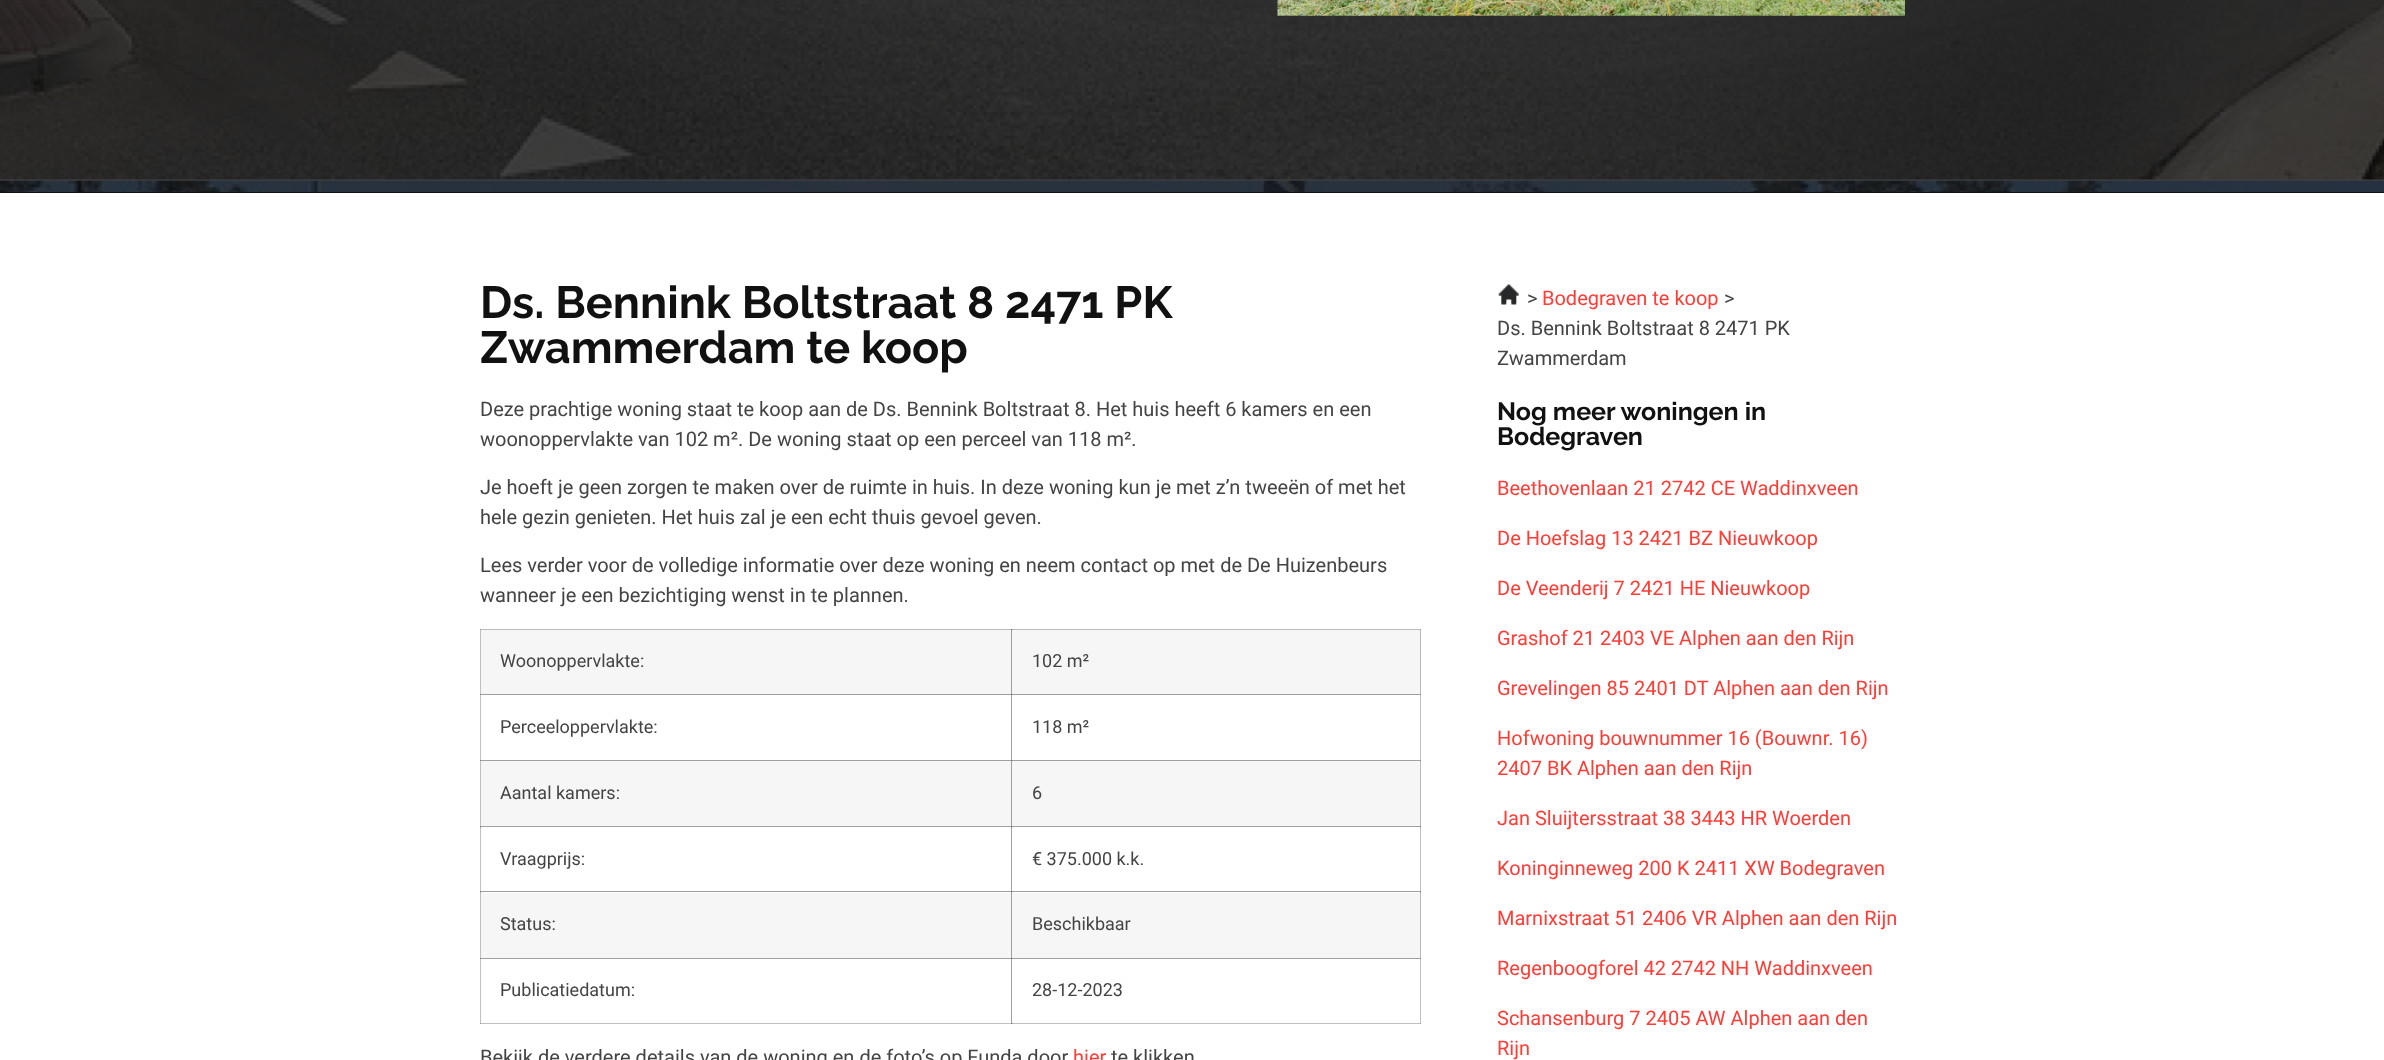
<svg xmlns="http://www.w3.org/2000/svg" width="2384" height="1060">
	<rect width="100%" height="100%" fill="#FFFFFF" />
	<rect x="480" y="629" width="1" height="395" fill="#C0C0C0" />
	<rect x="480" y="629" width="1" height="1" fill="#A0A0A0" />
	<rect x="480" y="694" width="1" height="1" fill="#888888" />
	<rect x="1011" y="694" width="1" height="67" fill="#A0A0A0" />
	<rect x="1420" y="694" width="1" height="67" fill="#C0C0C0" />
	<rect x="480" y="760" width="941" height="1" fill="#A0A0A0" />
	<rect x="480" y="760" width="1" height="1" fill="#888888" />
	<rect x="480" y="826" width="1" height="2" fill="#A0A0A0" />
	<rect x="480" y="826" width="533" height="1" fill="#A0A0A0" />
	<rect x="480" y="826" width="1" height="1" fill="#888888" />
	<rect x="1011" y="826" width="1" height="67" fill="#A0A0A0" />
	<rect x="1011" y="826" width="1" height="2" fill="#888888" />
	<rect x="1420" y="826" width="1" height="67" fill="#C0C0C0" />
	<rect x="1420" y="826" width="1" height="2" fill="#A0A0A0" />
	<rect x="480" y="891" width="1" height="2" fill="#A0A0A0" />
	<rect x="480" y="891" width="533" height="1" fill="#A0A0A0" />
	<rect x="480" y="891" width="1" height="1" fill="#888888" />
	<rect x="1011" y="891" width="1" height="2" fill="#888888" />
	<rect x="1420" y="891" width="1" height="2" fill="#A0A0A0" />
	<rect x="480" y="1023" width="533" height="1" fill="#C0C0C0" />
	<rect x="480" y="1023" width="1" height="1" fill="#A0A0A0" />
	<rect x="480" y="958" width="533" height="1" fill="#A0A0A0" />
	<rect x="480" y="958" width="1" height="1" fill="#888888" />
	<rect x="1011" y="958" width="1" height="66" fill="#A0A0A0" />
	<rect x="1011" y="1023" width="410" height="1" fill="#C0C0C0" />
	<rect x="1011" y="1023" width="2" height="1" fill="#A0A0A0" />
	<rect x="1011" y="1023" width="1" height="1" fill="#888888" />
	<rect x="1420" y="958" width="1" height="66" fill="#C0C0C0" />
	<rect x="1420" y="1023" width="1" height="1" fill="#A0A0A0" />
	<rect x="0" y="192" width="2384" height="1" fill="#111111" />
	<image x="0" y="0" width="2384" height="192" href="assets/img1.png" />
	<image x="1277" y="0" width="628" height="16" href="assets/img2.png" />
	<g font-family="Raleway" font-size="45" font-weight="700" fill="#111111">
		<text x="480" y="318">Ds. Bennink Boltstraat 8 2471 PK</text>
		<text x="480" y="363">Zwammerdam te koop</text>
	</g>
	<g font-family="Roboto" font-size="20" fill="#444444">
		<text x="480" y="416">Deze prachtige woning staat te koop aan de Ds. Bennink Boltstraat 8. Het huis heeft 6 kamers en een</text>
		<text x="480" y="446">woonoppervlakte van 102 m². De woning staat op een perceel van 118 m².</text>
		<text x="480" y="494">Je hoeft je geen zorgen te maken over de ruimte in huis. In deze woning kun je met z’n tweeën of met het</text>
		<text x="480" y="524">hele gezin genieten. Het huis zal je een echt thuis gevoel geven.</text>
		<text x="480" y="572">Lees verder voor de volledige informatie over deze woning en neem contact op met de De Huizenbeurs</text>
		<text x="480" y="602">wanneer je een bezichtiging wenst in te plannen.</text>
	</g>
	<rect x="481" y="630" width="939" height="64" fill="#F6F6F6" />
	<rect x="481" y="629" width="532" height="1" fill="#BBBBBB" />
	<rect x="1011" y="629" width="1" height="66" fill="#9E9E9E" />
	<rect x="481" y="694" width="532" height="1" fill="#9E9E9E" />
	<text x="500" y="667" font-family="Roboto" font-size="18" fill="#444444">Woonoppervlakte:</text>
	<rect x="1420" y="629" width="1" height="66" fill="#BBBBBB" />
	<rect x="1011" y="629" width="410" height="1" fill="#BBBBBB" />
	<rect x="1011" y="629" width="2" height="1" fill="#9E9E9E" />
	<rect x="1011" y="629" width="1" height="1" fill="#888888" />
	<rect x="1420" y="629" width="1" height="1" fill="#9E9E9E" />
	<g font-family="Roboto" font-size="18" fill="#444444">
		<text x="1032" y="667">102 m²</text>
		<text x="500" y="733">Perceeloppervlakte:</text>
	</g>
	<rect x="1011" y="694" width="410" height="1" fill="#9E9E9E" />
	<rect x="1011" y="694" width="2" height="1" fill="#888888" />
	<rect x="1011" y="694" width="1" height="1" fill="#818181" />
	<rect x="1420" y="694" width="1" height="1" fill="#888888" />
	<text x="1032" y="733" font-family="Roboto" font-size="18" fill="#444444">118 m²</text>
	<rect x="481" y="761" width="939" height="65" fill="#F6F6F6" />
	<rect x="1011" y="761" width="1" height="65" fill="#9E9E9E" />
	<text x="500" y="799" font-family="Roboto" font-size="18" fill="#444444">Aantal kamers:</text>
	<rect x="1420" y="761" width="1" height="65" fill="#BBBBBB" />
	<rect x="1011" y="760" width="2" height="1" fill="#888888" />
	<rect x="1011" y="760" width="1" height="1" fill="#818181" />
	<rect x="1420" y="760" width="1" height="1" fill="#888888" />
	<g font-family="Roboto" font-size="18" fill="#444444">
		<text x="1032" y="799">6</text>
		<text x="500" y="865">Vraagprijs:</text>
	</g>
	<rect x="1011" y="826" width="410" height="1" fill="#A0A0A0" />
	<rect x="1011" y="826" width="2" height="1" fill="#888888" />
	<rect x="1011" y="826" width="1" height="1" fill="#818181" />
	<rect x="1420" y="826" width="1" height="1" fill="#888888" />
	<text x="1032" y="865" font-family="Roboto" font-size="18" fill="#444444">€ 375.000 k.k.</text>
	<rect x="481" y="893" width="939" height="65" fill="#F6F6F6" />
	<rect x="1011" y="893" width="1" height="65" fill="#9E9E9E" />
	<text x="500" y="930" font-family="Roboto" font-size="18" fill="#444444">Status:</text>
	<rect x="1420" y="893" width="1" height="65" fill="#BBBBBB" />
	<rect x="1011" y="891" width="410" height="1" fill="#A0A0A0" />
	<rect x="1011" y="891" width="2" height="1" fill="#888888" />
	<rect x="1011" y="891" width="1" height="1" fill="#818181" />
	<rect x="1420" y="891" width="1" height="1" fill="#888888" />
	<g font-family="Roboto" font-size="18" fill="#444444">
		<text x="1032" y="930">Beschikbaar</text>
		<text x="500" y="996">Publicatiedatum:</text>
	</g>
	<rect x="1011" y="958" width="410" height="1" fill="#A0A0A0" />
	<rect x="1011" y="958" width="2" height="1" fill="#888888" />
	<rect x="1011" y="958" width="1" height="1" fill="#818181" />
	<rect x="1420" y="958" width="1" height="1" fill="#888888" />
	<text x="1032" y="996" font-family="Roboto" font-size="18" fill="#444444">28-12-2023</text>
	<text x="480" y="1064" font-family="Roboto" font-size="20" fill="#444444">Bekijk de verdere details van de woning en de foto’s op Funda door</text>
	<text x="1073" y="1064" font-family="Roboto" font-size="20" fill="#FF3C36">hier</text>
	<text x="1111" y="1064" font-family="Roboto" font-size="20" fill="#444444">te klikken</text>
	<image x="1498" y="284" width="21" height="21" href="assets/img3.png" />
	<text x="1527" y="305" font-family="Roboto" font-size="20" fill="#444444">&gt;</text>
	<text x="1542" y="305" font-family="Roboto" font-size="20" fill="#FF3C36">Bodegraven te koop</text>
	<g font-family="Roboto" font-size="20" fill="#444444">
		<text x="1724" y="305">&gt;</text>
		<text x="1497" y="335">Ds. Bennink Boltstraat 8 2471 PK</text>
		<text x="1497" y="365">Zwammerdam</text>
	</g>
	<g font-family="Raleway" font-size="25" font-weight="700" fill="#111111">
		<text x="1497" y="420">Nog meer woningen in</text>
		<text x="1497" y="445">Bodegraven</text>
	</g>
	<g font-family="Roboto" font-size="20" fill="#FF3C36">
		<text x="1497" y="495">Beethovenlaan 21 2742 CE Waddinxveen</text>
		<text x="1497" y="545">De Hoefslag 13 2421 BZ Nieuwkoop</text>
		<text x="1497" y="595">De Veenderij 7 2421 HE Nieuwkoop</text>
		<text x="1497" y="645">Grashof 21 2403 VE Alphen aan den Rijn</text>
		<text x="1497" y="695">Grevelingen 85 2401 DT Alphen aan den Rijn</text>
		<text x="1497" y="745">Hofwoning bouwnummer 16 (Bouwnr. 16)</text>
		<text x="1497" y="775">2407 BK Alphen aan den Rijn</text>
		<text x="1497" y="825">Jan Sluijtersstraat 38 3443 HR Woerden</text>
		<text x="1497" y="875">Koninginneweg 200 K 2411 XW Bodegraven</text>
		<text x="1497" y="925">Marnixstraat 51 2406 VR Alphen aan den Rijn</text>
		<text x="1497" y="975">Regenboogforel 42 2742 NH Waddinxveen</text>
		<text x="1497" y="1025">Schansenburg 7 2405 AW Alphen aan den</text>
		<text x="1497" y="1055">Rijn</text>
	</g>
</svg>
